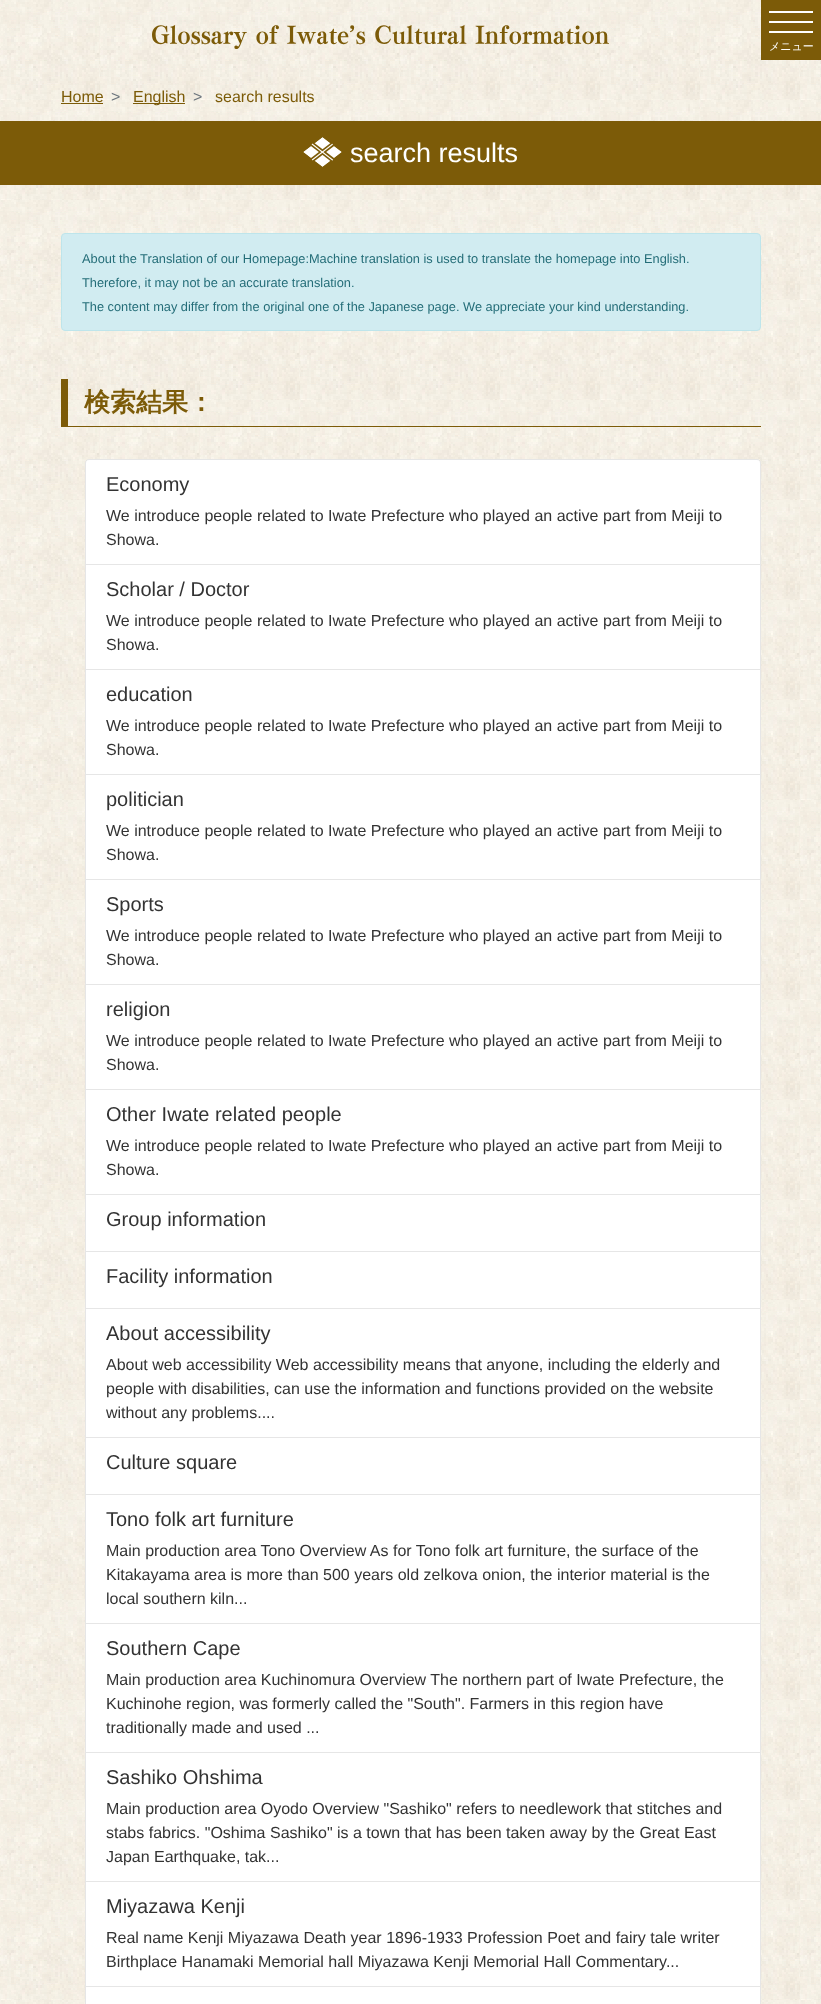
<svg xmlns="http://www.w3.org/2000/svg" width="821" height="2004">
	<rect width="100%" height="100%" fill="#FFFFFF" />
	<image x="0" y="0" width="821" height="2004" href="assets/img1.png" />
	<image x="152" y="25" width="457" height="24" href="assets/img2.png" />
	<rect x="761" y="0" width="60" height="60" fill="#7C5B08" />
	<rect x="769" y="11" width="44" height="2" fill="#FFFFFF" />
	<rect x="769" y="21" width="44" height="2" fill="#FFFFFF" />
	<rect x="769" y="31" width="44" height="2" fill="#FFFFFF" />
	<text x="769" y="50" font-family="WenQuanYi Zen Hei" font-size="11" font-weight="500" fill="#FFFFFF">メニュー</text>
	<text x="61" y="102" font-family="Liberation Sans" font-size="16" fill="#7C5B08">Home</text>
	<rect x="61" y="103" width="42" height="1" fill="#7C5B08" />
	<text x="111" y="102" font-family="Liberation Sans" font-size="16" fill="#6C757D">&gt;</text>
	<rect x="133" y="103" width="52" height="1" fill="#7C5B08" />
	<text x="133" y="102" font-family="Liberation Sans" font-size="16" fill="#7C5B08">English</text>
	<text x="193" y="102" font-family="Liberation Sans" font-size="16" fill="#6C757D">&gt;</text>
	<text x="215" y="102" font-family="Liberation Sans" font-size="16" fill="#7C5B08">search results</text>
	<rect x="0" y="121" width="821" height="64" fill="#7C5B08" />
	<image x="303" y="137" width="39" height="30" href="assets/img3.png" />
	<text x="350" y="162" font-family="Liberation Sans" font-size="27" fill="#FFFFFF">search results</text>
	<rect x="61.5" y="233.5" width="699" height="97" rx="3.5" fill="#D1ECF1" stroke="#BEE5EB" />
	<g font-family="Liberation Sans" font-size="12.8" fill="#246D78">
		<text x="82" y="263">About the Translation of our Homepage:Machine translation is used to translate the homepage into English.</text>
		<text x="82" y="287">Therefore, it may not be an accurate translation.</text>
		<text x="82" y="311">The content may differ from the original one of the Japanese page. We appreciate your kind understanding.</text>
	</g>
	<rect x="61" y="426" width="700" height="1" fill="#7C5B08" />
	<rect x="61" y="379" width="7" height="48" fill="#7C5B08" />
	<text x="84" y="411" font-family="WenQuanYi Zen Hei" font-size="26" font-weight="700" fill="#7C5B08">検索結果：</text>
	<path d="M89 459H757C759 459 761 461 761 463V565H85V463C85 461 87 459 89 459Z" fill="#FFFFFF" />
	<path d="M89 459.5H757C759 459.5 760.5 461 760.5 463V564.5H85.5V463C85.5 461 87 459.5 89 459.5Z" fill="none" stroke="#333333" stroke-opacity="0.12" />
	<text x="106" y="491" font-family="Liberation Sans" font-size="20" fill="#333333">Economy</text>
	<g font-family="Liberation Sans" font-size="16" fill="#333333">
		<text x="106" y="521">We introduce people related to Iwate Prefecture who played an active part from Meiji to</text>
		<text x="106" y="545">Showa.</text>
	</g>
	<rect x="85.5" y="564.5" width="675" height="105" fill="#FFFFFF" stroke="#E6E6E6" />
	<text x="106" y="596" font-family="Liberation Sans" font-size="20" fill="#333333">Scholar / Doctor</text>
	<g font-family="Liberation Sans" font-size="16" fill="#333333">
		<text x="106" y="626">We introduce people related to Iwate Prefecture who played an active part from Meiji to</text>
		<text x="106" y="650">Showa.</text>
	</g>
	<rect x="85.5" y="669.5" width="675" height="105" fill="#FFFFFF" stroke="#E6E6E6" />
	<text x="106" y="701" font-family="Liberation Sans" font-size="20" fill="#333333">education</text>
	<g font-family="Liberation Sans" font-size="16" fill="#333333">
		<text x="106" y="731">We introduce people related to Iwate Prefecture who played an active part from Meiji to</text>
		<text x="106" y="755">Showa.</text>
	</g>
	<rect x="85.5" y="774.5" width="675" height="105" fill="#FFFFFF" stroke="#E6E6E6" />
	<text x="106" y="806" font-family="Liberation Sans" font-size="20" fill="#333333">politician</text>
	<g font-family="Liberation Sans" font-size="16" fill="#333333">
		<text x="106" y="836">We introduce people related to Iwate Prefecture who played an active part from Meiji to</text>
		<text x="106" y="860">Showa.</text>
	</g>
	<rect x="85.5" y="879.5" width="675" height="105" fill="#FFFFFF" stroke="#E6E6E6" />
	<text x="106" y="911" font-family="Liberation Sans" font-size="20" fill="#333333">Sports</text>
	<g font-family="Liberation Sans" font-size="16" fill="#333333">
		<text x="106" y="941">We introduce people related to Iwate Prefecture who played an active part from Meiji to</text>
		<text x="106" y="965">Showa.</text>
	</g>
	<rect x="85.5" y="984.5" width="675" height="105" fill="#FFFFFF" stroke="#E6E6E6" />
	<text x="106" y="1016" font-family="Liberation Sans" font-size="20" fill="#333333">religion</text>
	<g font-family="Liberation Sans" font-size="16" fill="#333333">
		<text x="106" y="1046">We introduce people related to Iwate Prefecture who played an active part from Meiji to</text>
		<text x="106" y="1070">Showa.</text>
	</g>
	<rect x="85.5" y="1089.5" width="675" height="105" fill="#FFFFFF" stroke="#E6E6E6" />
	<text x="106" y="1121" font-family="Liberation Sans" font-size="20" fill="#333333">Other Iwate related people</text>
	<g font-family="Liberation Sans" font-size="16" fill="#333333">
		<text x="106" y="1151">We introduce people related to Iwate Prefecture who played an active part from Meiji to</text>
		<text x="106" y="1175">Showa.</text>
	</g>
	<rect x="85.5" y="1194.5" width="675" height="57" fill="#FFFFFF" stroke="#E6E6E6" />
	<text x="106" y="1226" font-family="Liberation Sans" font-size="20" fill="#333333">Group information</text>
	<rect x="85.5" y="1251.5" width="675" height="57" fill="#FFFFFF" stroke="#E6E6E6" />
	<text x="106" y="1283" font-family="Liberation Sans" font-size="20" fill="#333333">Facility information</text>
	<rect x="85.5" y="1308.5" width="675" height="129" fill="#FFFFFF" stroke="#E6E6E6" />
	<text x="106" y="1340" font-family="Liberation Sans" font-size="20" fill="#333333">About accessibility</text>
	<g font-family="Liberation Sans" font-size="16" fill="#333333">
		<text x="106" y="1370">About web accessibility Web accessibility means that anyone, including the elderly and</text>
		<text x="106" y="1394">people with disabilities, can use the information and functions provided on the website</text>
		<text x="106" y="1418">without any problems....</text>
	</g>
	<rect x="85.5" y="1437.5" width="675" height="57" fill="#FFFFFF" stroke="#E6E6E6" />
	<text x="106" y="1469" font-family="Liberation Sans" font-size="20" fill="#333333">Culture square</text>
	<rect x="85.5" y="1494.5" width="675" height="129" fill="#FFFFFF" stroke="#E6E6E6" />
	<text x="106" y="1526" font-family="Liberation Sans" font-size="20" fill="#333333">Tono folk art furniture</text>
	<g font-family="Liberation Sans" font-size="16" fill="#333333">
		<text x="106" y="1556">Main production area Tono Overview As for Tono folk art furniture, the surface of the</text>
		<text x="106" y="1580">Kitakayama area is more than 500 years old zelkova onion, the interior material is the</text>
		<text x="106" y="1604">local southern kiln...</text>
	</g>
	<rect x="85.5" y="1623.5" width="675" height="129" fill="#FFFFFF" stroke="#E6E6E6" />
	<text x="106" y="1655" font-family="Liberation Sans" font-size="20" fill="#333333">Southern Cape</text>
	<g font-family="Liberation Sans" font-size="16" fill="#333333">
		<text x="106" y="1685">Main production area Kuchinomura Overview The northern part of Iwate Prefecture, the</text>
		<text x="106" y="1709">Kuchinohe region, was formerly called the "South". Farmers in this region have</text>
		<text x="106" y="1733">traditionally made and used ...</text>
	</g>
	<rect x="85.5" y="1752.5" width="675" height="129" fill="#FFFFFF" stroke="#E6E6E6" />
	<text x="106" y="1784" font-family="Liberation Sans" font-size="20" fill="#333333">Sashiko Ohshima</text>
	<g font-family="Liberation Sans" font-size="16" fill="#333333">
		<text x="106" y="1814">Main production area Oyodo Overview "Sashiko" refers to needlework that stitches and</text>
		<text x="106" y="1838">stabs fabrics. "Oshima Sashiko" is a town that has been taken away by the Great East</text>
		<text x="106" y="1862">Japan Earthquake, tak...</text>
	</g>
	<rect x="85.5" y="1881.5" width="675" height="105" fill="#FFFFFF" stroke="#E6E6E6" />
	<text x="106" y="1913" font-family="Liberation Sans" font-size="20" fill="#333333">Miyazawa Kenji</text>
	<g font-family="Liberation Sans" font-size="16" fill="#333333">
		<text x="106" y="1943">Real name Kenji Miyazawa Death year 1896-1933 Profession Poet and fairy tale writer</text>
		<text x="106" y="1967">Birthplace Hanamaki Memorial hall Miyazawa Kenji Memorial Hall Commentary...</text>
	</g>
	<rect x="85.5" y="1986.5" width="675" height="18" fill="#FFFFFF" stroke="#E6E6E6" />
</svg>
